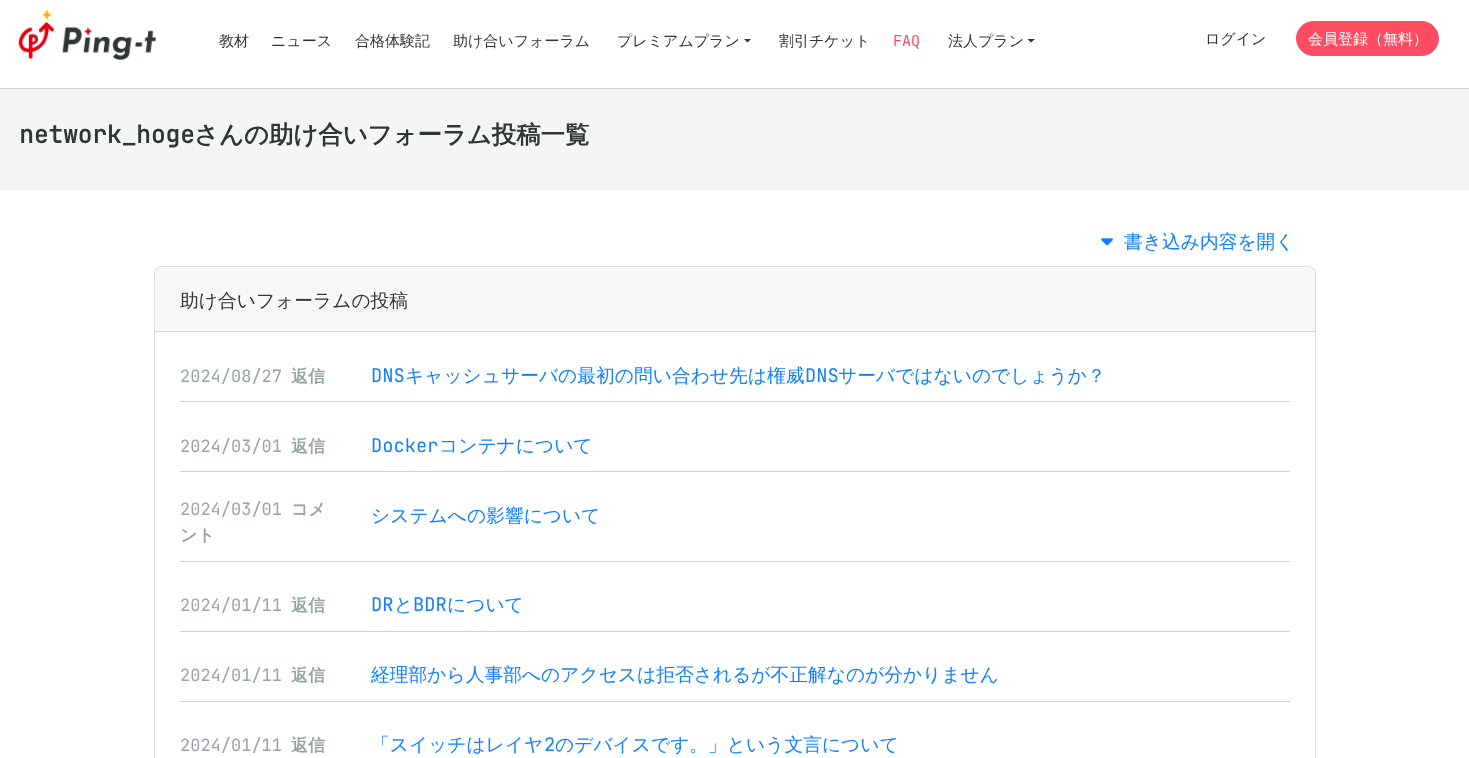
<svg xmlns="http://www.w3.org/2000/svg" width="1469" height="758">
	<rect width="100%" height="100%" fill="#FFFFFF" />
	<rect x="0" y="88" width="1469" height="1" fill="#D0D3D6" />
	<image x="18" y="10" width="139" height="50" href="assets/img1.png" />
	<g font-family="WenQuanYi Zen Hei" font-size="15" font-weight="500" fill="#2F3637">
		<text x="219" y="46">教材</text>
		<text x="271" y="46">ニュース</text>
		<text x="355" y="46">合格体験記</text>
		<text x="453" y="46">助け合いフォーラム</text>
		<text x="617" y="46">プレミアムプラン</text>
	</g>
	<path d="M744 39H751L747.5 42.5Z" fill="#2F3637" />
	<text x="779" y="46" font-family="WenQuanYi Zen Hei" font-size="15" font-weight="500" fill="#2F3637">割引チケット</text>
	<text x="893" y="46" font-family="JetBrains Mono" font-size="15" fill="#FF4C62">FAQ</text>
	<text x="948" y="46" font-family="WenQuanYi Zen Hei" font-size="15" font-weight="500" fill="#2F3637">法人プラン</text>
	<path d="M1027.5 39H1035L1031 42.5Z" fill="#2F3637" />
	<text x="1205" y="44" font-family="WenQuanYi Zen Hei" font-size="15" font-weight="500" fill="#2F3637">ログイン</text>
	<rect x="1296.5" y="21.5" width="142" height="34" rx="17" fill="#FF4C62" stroke="#FF4C62" />
	<text x="1308" y="44" font-family="WenQuanYi Zen Hei" font-size="15" font-weight="500" fill="#FFFFFF">会員登録（無料）</text>
	<rect x="0" y="89" width="1469" height="101" fill="#F4F5F5" />
	<text x="19" y="143" font-family="JetBrains Mono" font-size="24.4" font-weight="700" fill="#2F3637">network_hoge</text>
	<text x="194" y="143" font-family="WenQuanYi Zen Hei" font-size="24.4" font-weight="700" fill="#2F3637">さんの助け合いフォーラム投稿一覧</text>
	<image x="1101" y="238" width="12" height="8" href="assets/img2.png" />
	<text x="1124" y="248" font-family="WenQuanYi Zen Hei" font-size="18.75" font-weight="500" fill="#117FFF">書き込み内容を開く</text>
	<rect x="154.5" y="266.5" width="1161" height="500" rx="7.5" fill="none" stroke="#DFDFDF" />
	<rect x="155" y="268" width="1160" height="65" fill="#000000" fill-opacity="0.03" />
	<rect x="155" y="331" width="1160" height="1" fill="#D8D8D8" />
	<text x="180" y="307" font-family="WenQuanYi Zen Hei" font-size="18.75" font-weight="500" fill="#2F3637">助け合いフォーラムの投稿</text>
	<rect x="180" y="401" width="1110" height="1" fill="#D0D3D6" />
	<text x="180" y="382" font-family="JetBrains Mono" font-size="17" fill="#97A4A5">2024/08/27</text>
	<text x="291" y="382" font-family="WenQuanYi Zen Hei" font-size="17" font-weight="700" fill="#97A4A5">返信</text>
	<text x="371" y="382" font-family="JetBrains Mono" font-size="18.75" fill="#117FFF">DNS</text>
	<text x="405" y="382" font-family="WenQuanYi Zen Hei" font-size="18.75" font-weight="500" fill="#117FFF">キャッシュサーバの最初の問い合わせ先は権威</text>
	<text x="805" y="382" font-family="JetBrains Mono" font-size="18.75" fill="#117FFF">DNS</text>
	<text x="838" y="382" font-family="WenQuanYi Zen Hei" font-size="18.75" font-weight="500" fill="#117FFF">サーバではないのでしょうか？</text>
	<rect x="180" y="471" width="1110" height="1" fill="#D0D3D6" />
	<text x="180" y="452" font-family="JetBrains Mono" font-size="17" fill="#97A4A5">2024/03/01</text>
	<text x="291" y="452" font-family="WenQuanYi Zen Hei" font-size="17" font-weight="700" fill="#97A4A5">返信</text>
	<text x="371" y="452" font-family="JetBrains Mono" font-size="18.75" fill="#117FFF">Docker</text>
	<text x="439" y="452" font-family="WenQuanYi Zen Hei" font-size="18.75" font-weight="500" fill="#117FFF">コンテナについて</text>
	<rect x="180" y="561" width="1110" height="1" fill="#D0D3D6" />
	<text x="180" y="515" font-family="JetBrains Mono" font-size="17" fill="#97A4A5">2024/03/01</text>
	<g font-family="WenQuanYi Zen Hei" font-size="17" font-weight="700" fill="#97A4A5">
		<text x="291" y="515">コメ</text>
		<text x="180" y="541">ント</text>
	</g>
	<text x="371" y="522" font-family="WenQuanYi Zen Hei" font-size="18.75" font-weight="500" fill="#117FFF">システムへの影響について</text>
	<rect x="180" y="631" width="1110" height="1" fill="#D0D3D6" />
	<text x="180" y="611" font-family="JetBrains Mono" font-size="17" fill="#97A4A5">2024/01/11</text>
	<text x="291" y="611" font-family="WenQuanYi Zen Hei" font-size="17" font-weight="700" fill="#97A4A5">返信</text>
	<text x="371" y="611" font-family="JetBrains Mono" font-size="18.75" fill="#117FFF">DR</text>
	<text x="394" y="611" font-family="WenQuanYi Zen Hei" font-size="18.75" font-weight="500" fill="#117FFF">と</text>
	<text x="413" y="611" font-family="JetBrains Mono" font-size="18.75" fill="#117FFF">BDR</text>
	<text x="447" y="611" font-family="WenQuanYi Zen Hei" font-size="18.75" font-weight="500" fill="#117FFF">について</text>
	<rect x="180" y="701" width="1110" height="1" fill="#D0D3D6" />
	<text x="180" y="681" font-family="JetBrains Mono" font-size="17" fill="#97A4A5">2024/01/11</text>
	<text x="291" y="681" font-family="WenQuanYi Zen Hei" font-size="17" font-weight="700" fill="#97A4A5">返信</text>
	<text x="371" y="681" font-family="WenQuanYi Zen Hei" font-size="18.75" font-weight="500" fill="#117FFF">経理部から人事部へのアクセスは拒否されるが不正解なのが分かりません</text>
	<text x="180" y="751" font-family="JetBrains Mono" font-size="17" fill="#97A4A5">2024/01/11</text>
	<text x="291" y="751" font-family="WenQuanYi Zen Hei" font-size="17" font-weight="700" fill="#97A4A5">返信</text>
	<text x="371" y="751" font-family="WenQuanYi Zen Hei" font-size="18.75" font-weight="500" fill="#117FFF">「スイッチはレイヤ</text>
	<text x="544" y="751" font-family="JetBrains Mono" font-size="18.75" fill="#117FFF">2</text>
	<text x="555" y="751" font-family="WenQuanYi Zen Hei" font-size="18.75" font-weight="500" fill="#117FFF">のデバイスです。」という文言について</text>
</svg>
